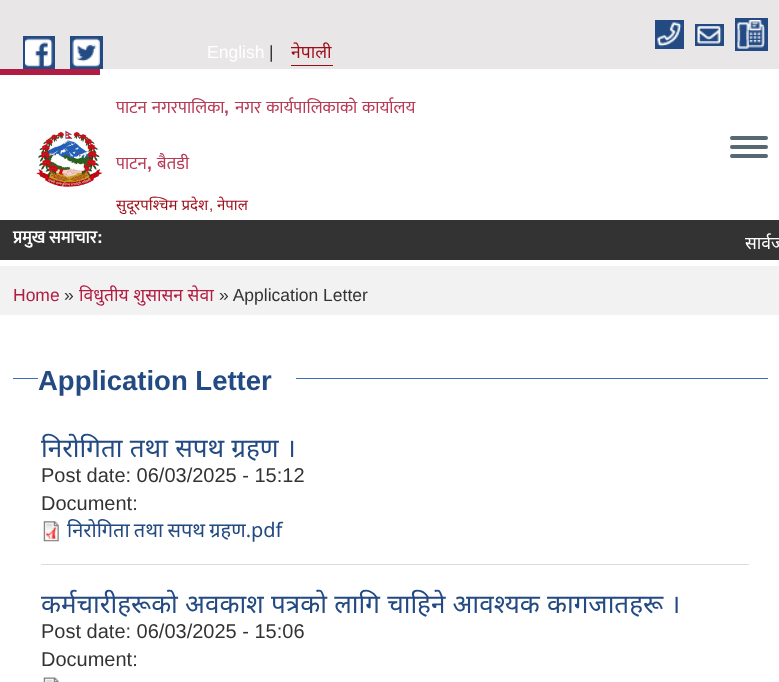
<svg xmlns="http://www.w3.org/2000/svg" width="779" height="682">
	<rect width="100%" height="100%" fill="#FFFFFF" />
	<rect x="0" y="0" width="779" height="69" fill="#E8E6E6" />
	<rect x="23" y="36" width="32" height="33" fill="#234A83" />
	<rect x="70" y="36" width="33" height="33" fill="#234A83" />
	<image x="25" y="38" width="28" height="29" href="assets/img1.png" />
	<image x="72" y="38" width="28" height="29" href="assets/img2.png" />
	<text x="207" y="58" font-family="Liberation Sans" font-size="17.5" fill="#FFFFFF">English</text>
	<text x="269" y="58" font-family="Liberation Sans" font-size="17.5" fill="#333333">|</text>
	<rect x="291" y="65" width="42" height="1" fill="#9E0C18" />
	<text x="291" y="58" font-family="Noto Sans" font-size="17.5" fill="#9E0C18">नेपाली</text>
	<rect x="655" y="20" width="29" height="29" fill="#234A83" />
	<rect x="735" y="18" width="33" height="33" fill="#234A83" />
	<image x="657" y="22" width="25" height="25" href="assets/img3.png" />
	<rect x="695" y="24" width="29" height="22" fill="#234A83" />
	<image x="737" y="20" width="28" height="29" href="assets/img4.png" />
	<image x="697" y="26" width="25" height="18" href="assets/img5.png" />
	<rect x="0" y="69" width="100" height="6" fill="#B21C42" />
	<image x="36" y="130" width="67" height="57" href="assets/img6.png" />
	<text x="116" y="113" word-spacing="1" font-family="Mukta" font-size="17.5" fill="#B83955">पाटन नगरपालिका</text>
	<text x="224" y="113" font-family="Liberation Sans" font-size="17.5" font-weight="700" fill="#B83955">,</text>
	<g font-family="Mukta" font-size="17.5" fill="#B83955">
		<text x="235" y="113" word-spacing="1">नगर कार्यपालिकाको कार्यालय</text>
		<text x="116" y="169">पाटन</text>
	</g>
	<text x="147" y="169" font-family="Liberation Sans" font-size="17.5" font-weight="700" fill="#B83955">,</text>
	<text x="157" y="169" font-family="Mukta" font-size="17.5" fill="#B83955">बैतडी</text>
	<text x="116" y="210" font-family="Noto Sans" font-size="15" fill="#9E0C18">सुदूरपश्चिम प्रदेश</text>
	<text x="209" y="210" font-family="Liberation Sans" font-size="15" fill="#9E0C18">,</text>
	<text x="217" y="210" font-family="Noto Sans" font-size="15" fill="#9E0C18">नेपाल</text>
	<rect x="730" y="136" width="38" height="4" rx="2" fill="#566973" />
	<rect x="730" y="145" width="38" height="4" rx="2" fill="#566973" />
	<rect x="730" y="154" width="38" height="4" rx="2" fill="#566973" />
	<rect x="0" y="220" width="779" height="40" fill="#333333" />
	<g font-family="Mukta" font-size="17.5" font-weight="700" fill="#FFFFFF">
		<text x="13" y="243">प्रमुख</text>
		<text x="49" y="243">समाचार</text>
	</g>
	<text x="97" y="243" font-family="Liberation Sans" font-size="17.5" font-weight="700" fill="#FFFFFF">:</text>
	<text x="745" y="249" font-family="Noto Sans" font-size="17.5" fill="#FFFFFF">सार्वज</text>
	<rect x="0" y="266" width="779" height="49" fill="#F2F2F2" />
	<text x="13" y="301" font-family="Liberation Sans" font-size="17.5" fill="#B21C42">Home</text>
	<text x="64" y="301" font-family="Liberation Sans" font-size="17.5" fill="#333333">»</text>
	<text x="79" y="301" font-family="Noto Sans" font-size="17.5" fill="#B21C42">विधुतीय शुसासन सेवा</text>
	<text x="219" y="301" font-family="Liberation Sans" font-size="17.5" fill="#333333">» Application Letter</text>
	<rect x="13" y="378" width="755" height="1" fill="#376FC2" />
	<rect x="38" y="378" width="258" height="1" fill="#FFFFFF" />
	<text x="38" y="390" font-family="Liberation Sans" font-size="27.5" font-weight="700" fill="#234A83">Application Letter</text>
	<rect x="41" y="564" width="708" height="1" fill="#DADDD8" />
	<text x="41" y="457" word-spacing="0.5" font-family="Noto Sans" font-size="26" fill="#234A83">निरोगिता तथा सपथ ग्रहण ।</text>
	<g font-family="Liberation Sans" font-size="20" fill="#333333">
		<text x="41" y="482">Post date: 06/03/2025 - 15:12</text>
		<text x="41" y="510">Document:</text>
	</g>
	<image x="43" y="521" width="16" height="21" href="assets/img7.png" />
	<text x="67" y="537" word-spacing="-1" font-family="Noto Sans" font-size="20" fill="#234A83">निरोगिता तथा सपथ ग्रहण.pdf</text>
	<text x="41" y="613" word-spacing="0.5" font-family="Noto Sans" font-size="26" fill="#234A83">कर्मचारीहरूको अवकाश पत्रको लागि चाहिने आवश्यक कागजातहरू ।</text>
	<g font-family="Liberation Sans" font-size="20" fill="#333333">
		<text x="41" y="638">Post date: 06/03/2025 - 15:06</text>
		<text x="41" y="666">Document:</text>
	</g>
	<image x="43" y="677" width="16" height="5" href="assets/img8.png" />
</svg>
